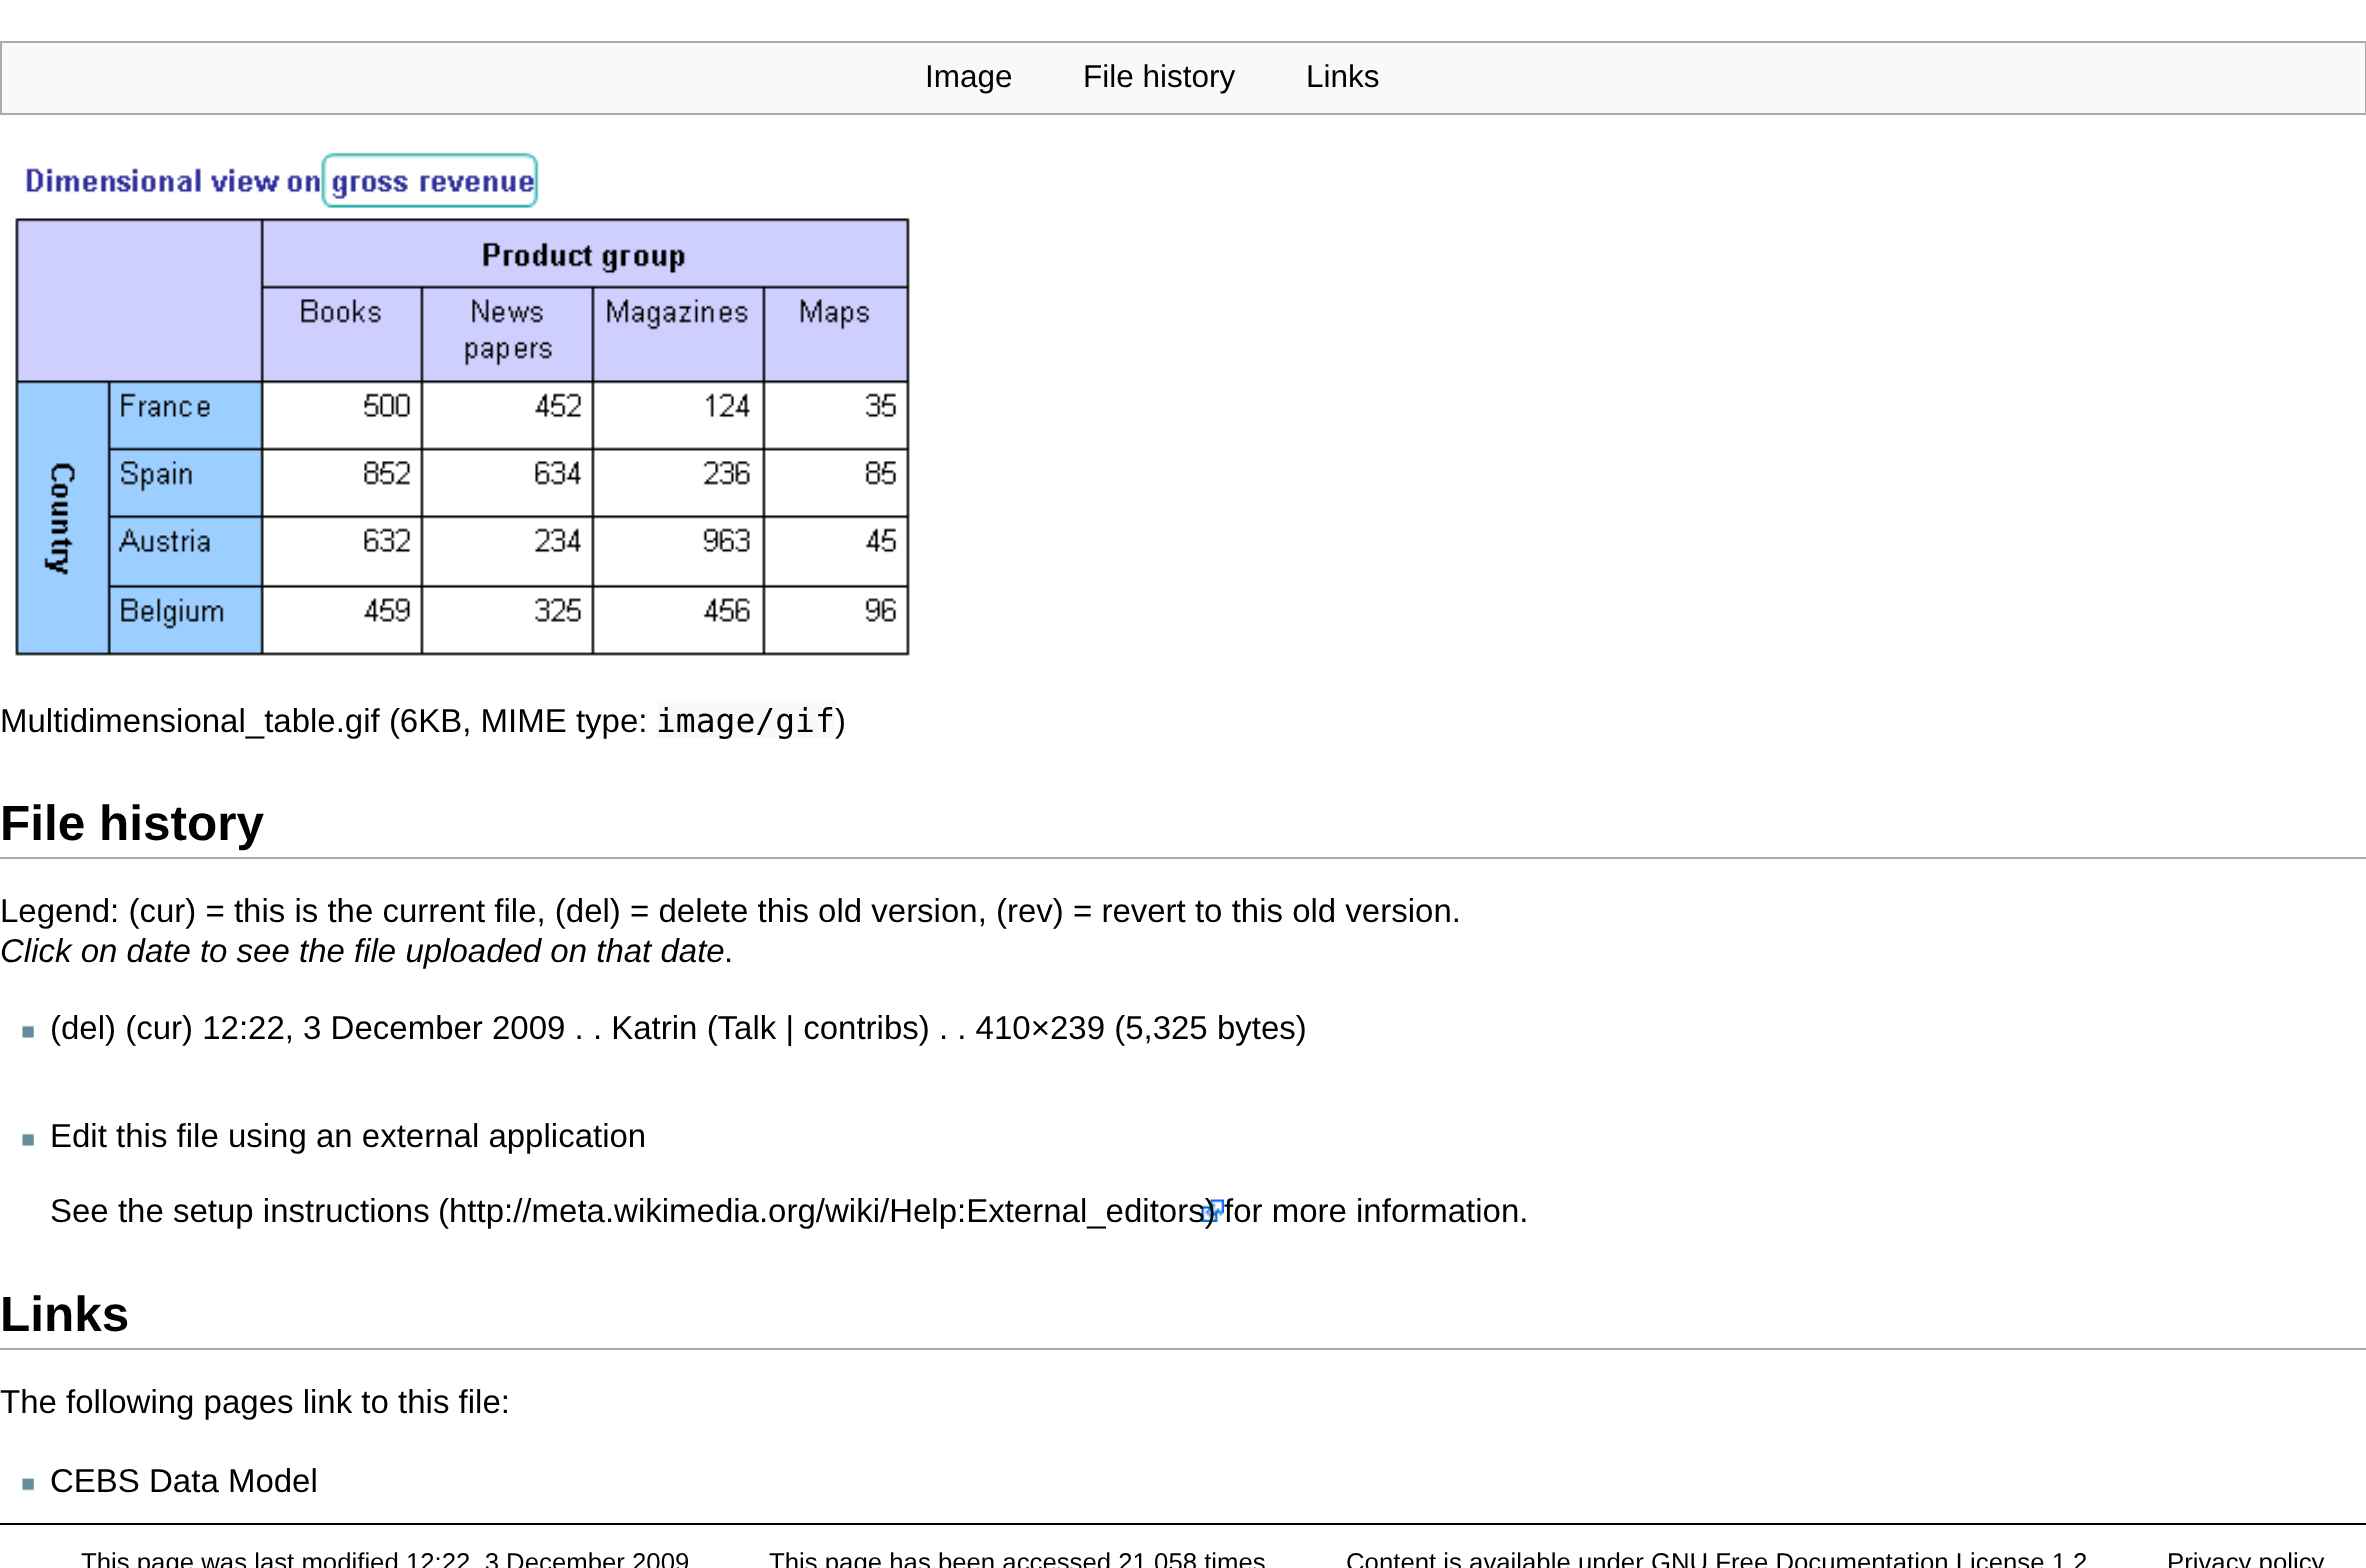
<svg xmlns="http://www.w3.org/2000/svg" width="2366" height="1568">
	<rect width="100%" height="100%" fill="#FFFFFF" />
	<rect x="1" y="42" width="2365" height="72" fill="#F9F9F9" stroke="#AAAAAA" stroke-width="2" />
	<g font-family="Liberation Sans" font-size="31.5" fill="#000000">
		<text x="925" y="87">Image</text>
		<text x="1083" y="87">File history</text>
		<text x="1306" y="87">Links</text>
	</g>
	<image x="15" y="152" width="895" height="504" href="assets/img1.png" />
	<text x="0" y="732" font-family="Liberation Sans" font-size="33" fill="#000000">Multidimensional_table.gif (6KB, MIME type:</text>
	<rect x="657" y="700" width="178" height="38" fill="#F9F9F9" />
	<text x="656" y="732" font-family="DejaVu Sans Mono" font-size="33" fill="#000000">image/gif</text>
	<text x="835" y="732" font-family="Liberation Sans" font-size="33" fill="#000000">)</text>
	<rect x="0" y="857" width="2366" height="2" fill="#AAAAAA" />
	<text x="0" y="840" font-family="Liberation Sans" font-size="49.5" font-weight="700" fill="#000000">File history</text>
	<text x="0" y="922" font-family="Liberation Sans" font-size="33" fill="#000000">Legend: (cur) = this is the current file, (del) = delete this old version, (rev) = revert to this old version.</text>
	<text x="0" y="962" font-family="Liberation Sans" font-size="33" font-style="italic" fill="#000000">Click on date to see the file uploaded on that date</text>
	<text x="724" y="962" font-family="Liberation Sans" font-size="33" fill="#000000">.</text>
	<image x="22" y="1025" width="12" height="14" href="assets/img2.png" />
	<text x="50" y="1039" font-family="Liberation Sans" font-size="33" fill="#000000">(del) (cur) 12:22, 3 December 2009 . . Katrin (Talk | contribs) . . 410×239 (5,325 bytes)</text>
	<image x="22" y="1133" width="12" height="14" href="assets/img2.png" />
	<g font-family="Liberation Sans" font-size="33" fill="#000000">
		<text x="50" y="1147">Edit this file using an external application</text>
		<text x="50" y="1222">See the setup instructions</text>
	</g>
	<image x="1201" y="1199" width="23" height="23" href="assets/img3.png" />
	<g font-family="Liberation Sans" font-size="33" fill="#000000">
		<text x="438" y="1222">(http://meta.wikimedia.org/wiki/Help:External_editors)</text>
		<text x="1224" y="1222">for more information.</text>
	</g>
	<rect x="0" y="1348" width="2366" height="2" fill="#AAAAAA" />
	<text x="0" y="1331" font-family="Liberation Sans" font-size="49.5" font-weight="700" fill="#000000">Links</text>
	<text x="0" y="1413" font-family="Liberation Sans" font-size="33" fill="#000000">The following pages link to this file:</text>
	<image x="22" y="1478" width="12" height="13" href="assets/img4.png" />
	<text x="50" y="1492" font-family="Liberation Sans" font-size="33" fill="#000000">CEBS Data Model</text>
	<rect x="0" y="1523" width="2366" height="2" fill="#000000" />
	<g font-family="Liberation Sans" font-size="25.75" fill="#000000">
		<text x="81" y="1571">This page was last modified 12:22, 3 December 2009</text>
		<text x="769" y="1571">This page has been accessed 21,058 times</text>
		<text x="1346" y="1571">Content is available under GNU Free Documentation License 1.2</text>
		<text x="2167" y="1571">Privacy policy</text>
	</g>
</svg>
